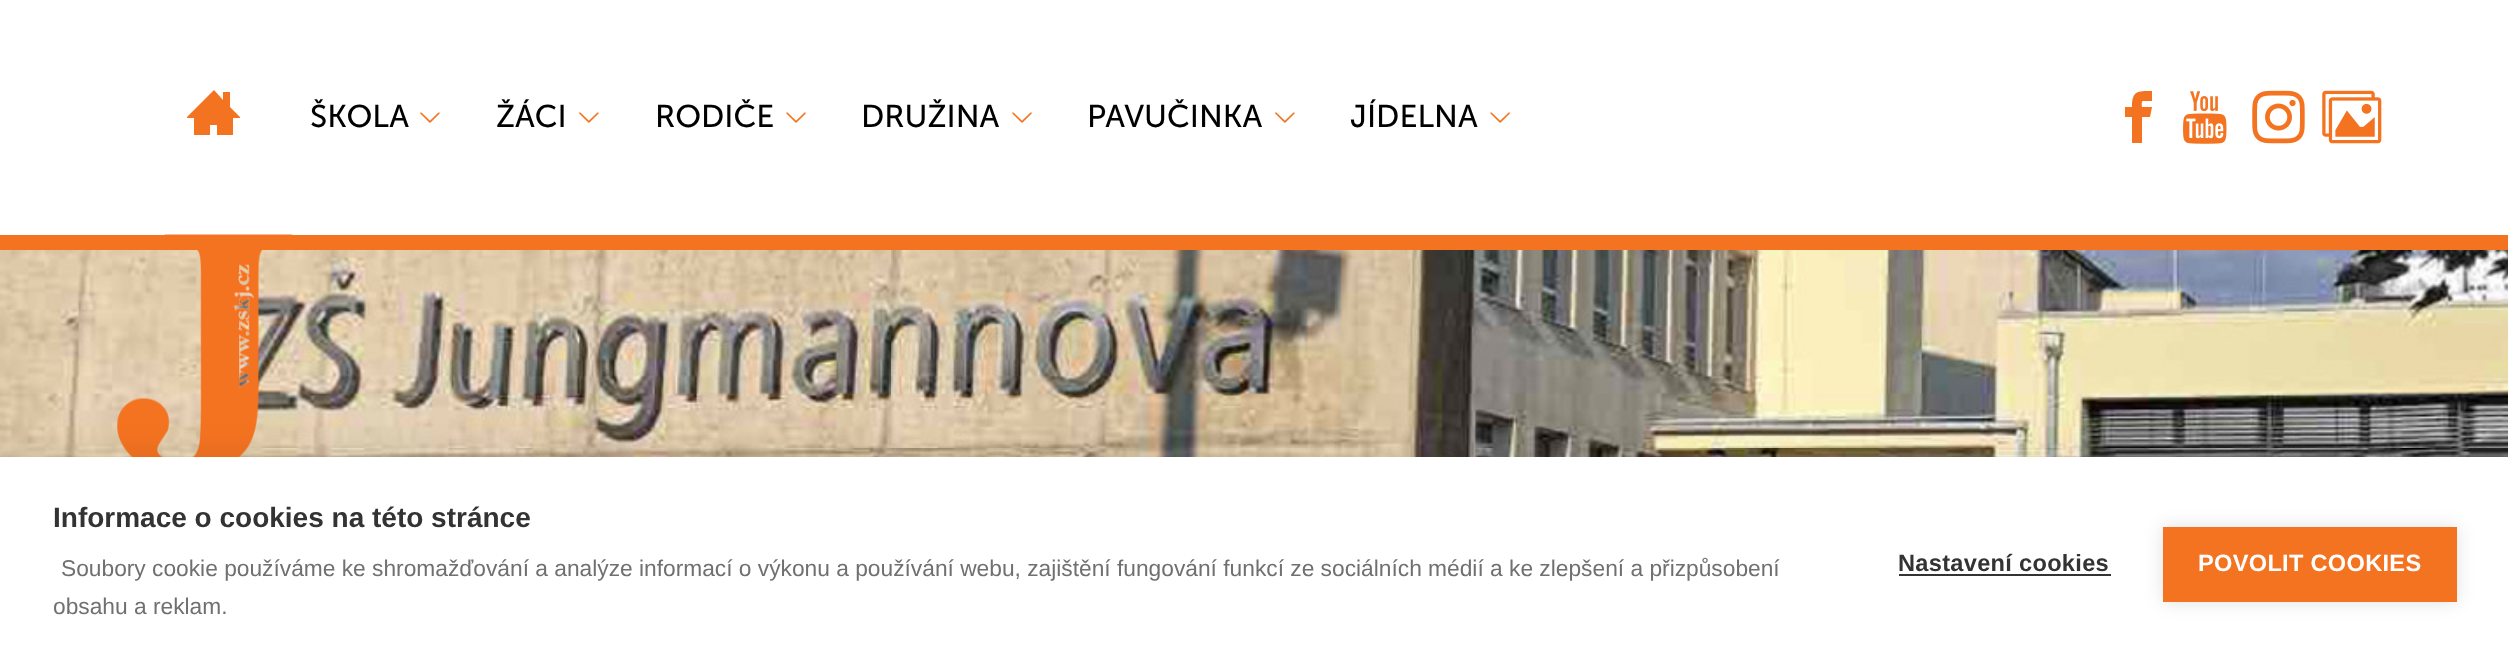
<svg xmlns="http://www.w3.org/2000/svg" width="2508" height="669">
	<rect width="100%" height="100%" fill="#FFFFFF" />
	<path d="M240 117L230 107V92H223V100L214 90L187 117V118H194V135H210V125H217V135H233V118H240Z" fill="#F47321" />
	<text x="310" y="127" font-family="'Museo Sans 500'" font-size="31.5" fill="#000000">ŠKOLA</text>
	<image x="420" y="112" width="20" height="11" href="assets/img1.png" />
	<text x="496" y="127" font-family="'Museo Sans 500'" font-size="31.5" fill="#000000">ŽÁCI</text>
	<image x="579" y="112" width="20" height="11" href="assets/img2.png" />
	<text x="655" y="127" font-family="'Museo Sans 500'" font-size="31.5" fill="#000000">RODIČE</text>
	<image x="786" y="112" width="20" height="11" href="assets/img3.png" />
	<text x="861" y="127" font-family="'Museo Sans 500'" font-size="31.5" fill="#000000">DRUŽINA</text>
	<image x="1012" y="112" width="20" height="11" href="assets/img4.png" />
	<text x="1087" y="127" font-family="'Museo Sans 500'" font-size="31.5" fill="#000000">PAVUČINKA</text>
	<image x="1275" y="112" width="20" height="11" href="assets/img5.png" />
	<text x="1350" y="127" font-family="'Museo Sans 500'" font-size="31.5" fill="#000000">JÍDELNA</text>
	<image x="1490" y="112" width="20" height="11" href="assets/img6.png" />
	<path d="M2143 101H2152V91C2137 91 2132 91 2132 107H2125V117H2132V143H2142V117H2150L2152 107H2142C2142 106 2141 101 2143 101Z" fill="#F47321" />
	<image x="2183" y="91" width="44" height="53" href="assets/img7.png" />
	<image x="2252" y="90" width="53" height="54" href="assets/img8.png" />
	<image x="2322" y="90" width="60" height="54" href="assets/img9.png" />
	<image x="0" y="250" width="2508" height="207" href="assets/img11.png" />
	<image x="117" y="234" width="176" height="223" href="assets/img10.png" />
	<rect x="0" y="235" width="2508" height="15" fill="#F47321" />
	<rect x="0" y="457" width="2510" height="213" fill="#000000" fill-opacity="0.1" filter="blur(17.5px)" />
	<rect x="0" y="457" width="2508" height="212" fill="#FFFFFF" />
	<text x="53" y="527" font-family="Liberation Sans" font-size="28" font-weight="700" fill="#333333">Informace o cookies na této stránce</text>
	<g font-family="Liberation Sans" font-size="22.75" fill="#707070">
		<text x="61" y="576">Soubory cookie používáme ke shromažďování a analýze informací o výkonu a používání webu, zajištění fungování funkcí ze sociálních médií a ke zlepšení a přizpůsobení</text>
		<text x="53" y="614">obsahu a reklam.</text>
	</g>
	<text x="1898" y="571" font-family="Liberation Sans" font-size="23.6" font-weight="700" letter-spacing="0.3" fill="#333333">Nastavení cookies</text>
	<rect x="1899" y="574" width="212" height="2" fill="#333333" />
	<rect x="2163" y="527" width="294" height="75" fill="#000000" fill-opacity="0.12" filter="blur(9px)" />
	<rect x="2163" y="527" width="294" height="75" fill="#F47321" />
	<text x="2198" y="571" font-family="Liberation Sans" font-size="23.6" font-weight="700" letter-spacing="0.3" fill="#FFFFFF">POVOLIT COOKIES</text>
</svg>
